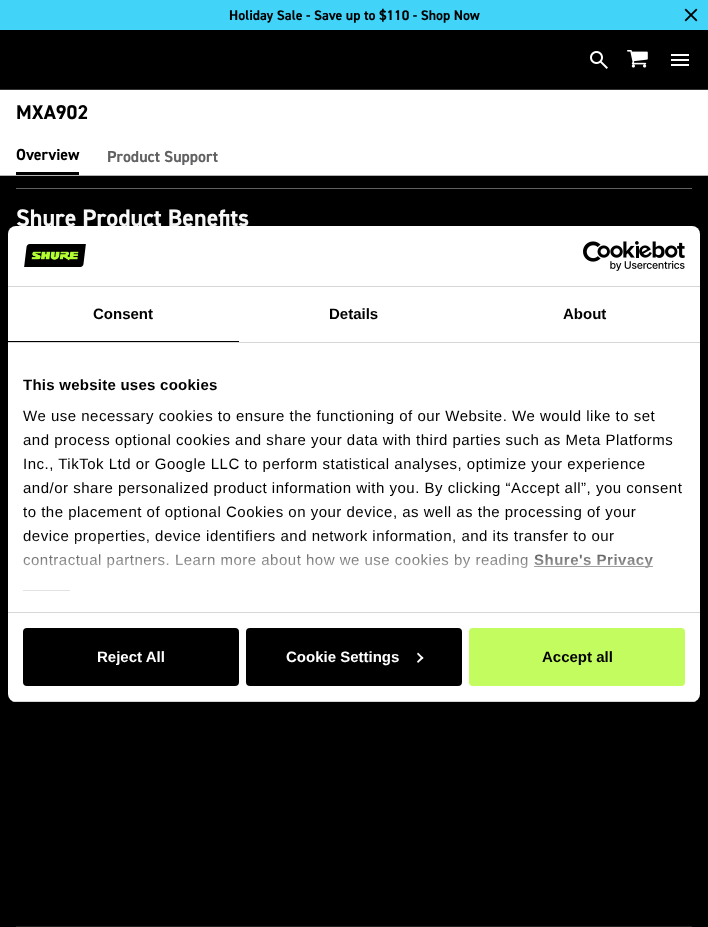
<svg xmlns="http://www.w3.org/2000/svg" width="708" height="927">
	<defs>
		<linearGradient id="g1" gradientUnits="userSpaceOnUse" x1="348" y1="612" x2="348" y2="537"><stop offset="0" stop-color="#FFFFFF" /><stop offset="0.5" stop-color="#FFFFFF" stop-opacity="0.8" /><stop offset="1" stop-color="#FFFFFF" stop-opacity="0" /></linearGradient>
		<clipPath id="clip1"><rect x="8" y="226" width="692" height="476" rx="8" /></clipPath>
	</defs>
	<rect width="100%" height="100%" fill="#000000" />
	<rect x="0" y="0" width="708" height="30" fill="#41D3F8" />
	<text x="229" y="20" font-family="'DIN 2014'" font-size="14" font-weight="700" fill="#000000">Holiday Sale - Save up to $110 - Shop Now</text>
	<image x="684" y="8" width="14" height="14" href="assets/img1.png" />
	<rect x="0" y="89" width="708" height="1" fill="#333335" />
	<image x="590" y="51" width="18" height="18" href="assets/img2.png" />
	<image x="627" y="50" width="21" height="18" href="assets/img3.png" />
	<image x="671" y="54" width="18" height="12" href="assets/img4.png" />
	<rect x="0" y="90" width="708" height="85" fill="#FFFFFF" />
	<rect x="0" y="175" width="708" height="1" fill="#B2B2B4" />
	<text x="16" y="119" font-family="'DIN 2014'" font-size="20" font-weight="700" fill="#000000">MXA902</text>
	<rect x="16" y="172" width="63" height="3" fill="#000000" />
	<text x="16" y="160" font-family="'DIN 2014'" font-size="16" font-weight="700" fill="#000000">Overview</text>
	<text x="107" y="162" font-family="'DIN 2014'" font-size="16" font-weight="700" fill="#626264">Product Support</text>
	<rect x="16" y="188" width="676" height="1" fill="#626264" />
	<text x="16" y="226" font-family="'DIN 2014'" font-size="24" font-weight="700" fill="#FFFFFF">Shure Product Benefits</text>
	<rect x="16" y="926" width="676" height="1" fill="#222222" />
	<rect x="8" y="258" width="692" height="476" rx="8" fill="#000000" fill-opacity="0.3" filter="blur(34px)" />
	<rect x="8" y="226" width="692" height="476" rx="8" fill="#FFFFFF" />
	<rect x="8" y="286" width="692" height="1" fill="#D7D7D7" />
	<image x="24" y="244" width="62" height="23" href="assets/img5.png" />
	<image x="583" y="241" width="102" height="30" href="assets/img6.png" />
	<rect x="8" y="342" width="692" height="1" fill="#D7D7D7" />
	<rect x="8" y="341" width="231" height="1" fill="#000000" />
	<g font-family="Liberation Sans" font-size="15" font-weight="700" fill="#000000">
		<text x="93" y="319">Consent</text>
		<text x="329" y="319">Details</text>
		<text x="563" y="319">About</text>
	</g>
	<rect x="8" y="612" width="692" height="1" fill="#D7D7D7" />
	<text x="23" y="390" font-family="Liberation Sans" font-size="15" font-weight="700" letter-spacing="0.25" fill="#000000">This website uses cookies</text>
	<g font-family="Liberation Sans" font-size="15" letter-spacing="0.5" fill="#000000">
		<text x="23" y="421">We use necessary cookies to ensure the functioning of our Website. We would like to set</text>
		<text x="23" y="445">and process optional cookies and share your data with third parties such as Meta Platforms</text>
		<text x="23" y="469">Inc., TikTok Ltd or Google LLC to perform statistical analyses, optimize your experience</text>
		<text x="23" y="493">and/or share personalized product information with you. By clicking “Accept all”, you consent</text>
		<text x="23" y="517">to the placement of optional Cookies on your device, as well as the processing of your</text>
		<text x="23" y="541">device properties, device identifiers and network information, and its transfer to our</text>
		<text x="23" y="565">contractual partners. Learn more about how we use cookies by reading</text>
	</g>
	<rect x="534" y="566" width="119" height="1" fill="#000000" />
	<text x="534" y="565" font-family="Liberation Sans" font-size="15" font-weight="700" letter-spacing="0.5" fill="#000000">Shure's Privacy</text>
	<rect x="23" y="590" width="47" height="1" fill="#000000" />
	<rect x="23" y="538" width="630" height="53" fill="url(#g1)" />
	<g clip-path="url(#clip1)">
		<rect x="8" y="701" width="692" height="1" fill="#D7D7D7" />
	</g>
	<rect x="24" y="629" width="214" height="56" rx="3" fill="#000000" stroke="#000000" stroke-width="2" />
	<text x="97" y="662" font-family="Liberation Sans" font-size="15" font-weight="700" fill="#FFFFFF">Reject All</text>
	<rect x="247" y="629" width="214" height="56" rx="3" fill="#000000" stroke="#000000" stroke-width="2" />
	<text x="286" y="662" font-family="Liberation Sans" font-size="15" font-weight="700" fill="#FFFFFF">Cookie Settings</text>
	<path d="M418 652.5L423.5 658L422 659L417 654Z" fill="#FFFFFF" />
	<path d="M422 656.5L423.5 658L418 663L417 661.5Z" fill="#FFFFFF" />
	<rect x="470" y="629" width="214" height="56" rx="3" fill="#C3FC5E" stroke="#C3FC5E" stroke-width="2" />
	<text x="542" y="662" font-family="Liberation Sans" font-size="15" font-weight="700" fill="#000000">Accept all</text>
</svg>
